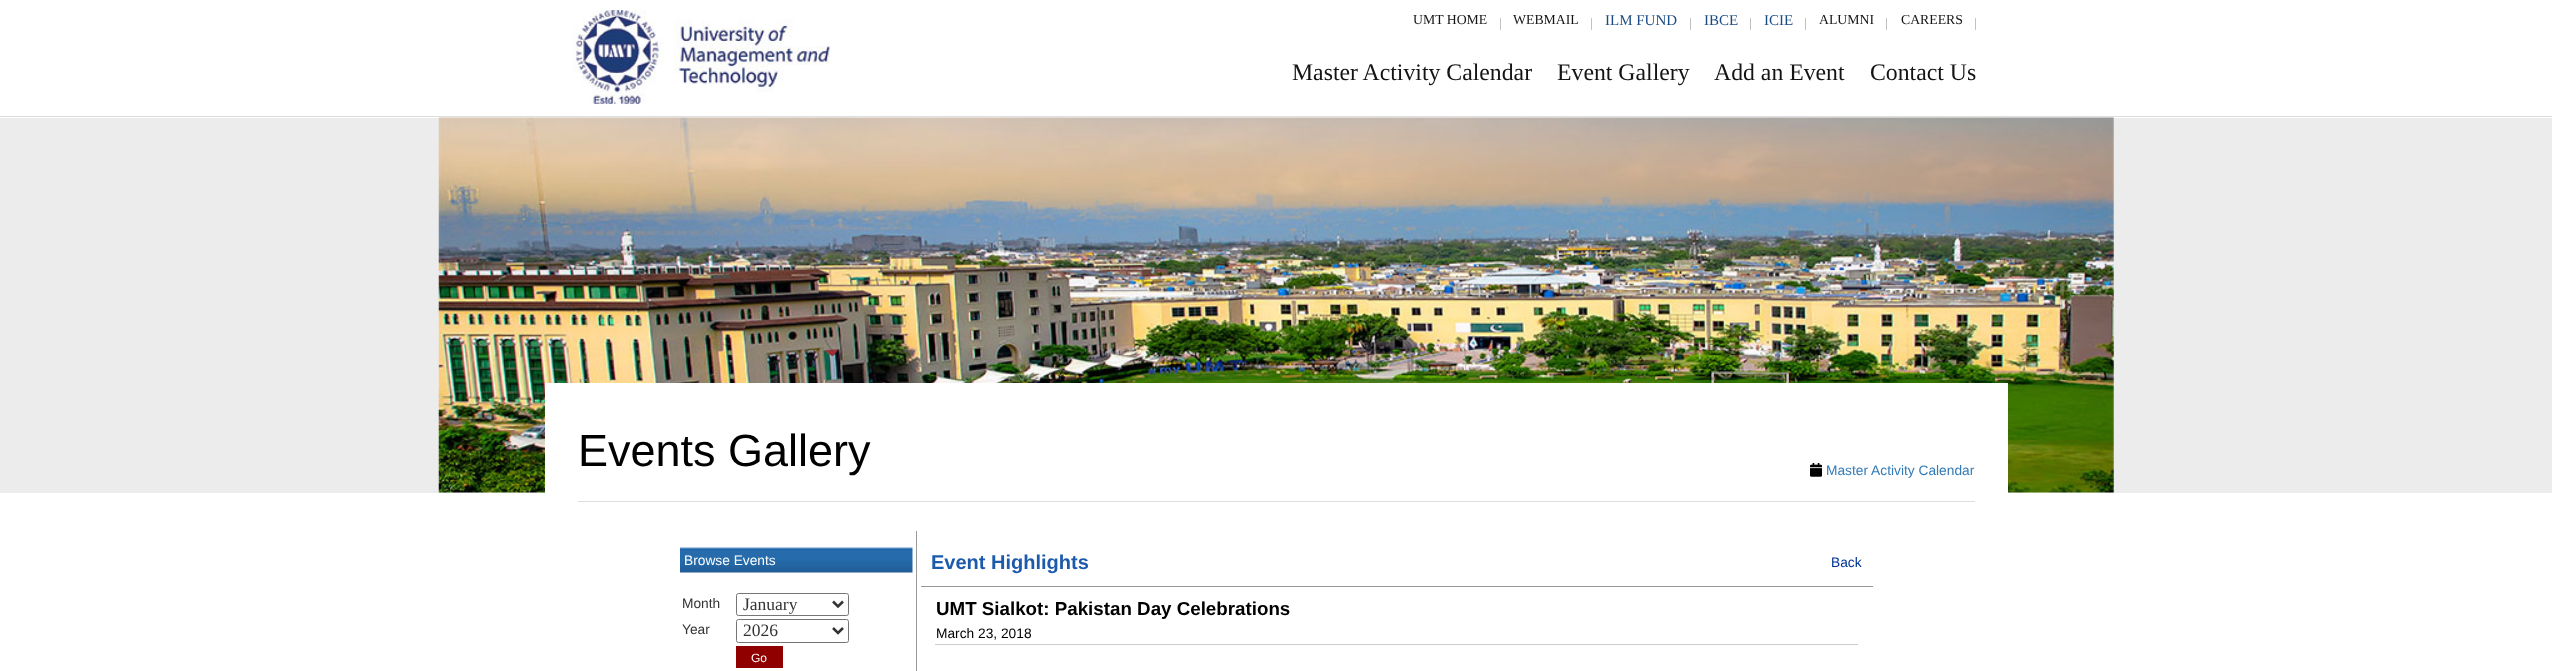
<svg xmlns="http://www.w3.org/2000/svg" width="2552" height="671">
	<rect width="100%" height="100%" fill="#FFFFFF" />
	<rect x="0" y="116" width="2552" height="1" fill="#DDDDDD" />
	<text x="1413" y="24" font-family="Liberation Serif" font-size="13.75" fill="#141414">UMT HOME</text>
	<rect x="1500" y="18" width="1" height="12" fill="#C0C0C0" />
	<text x="1513" y="24" font-family="Liberation Serif" font-size="13.75" fill="#141414">WEBMAIL</text>
	<rect x="1591" y="18" width="1" height="12" fill="#C0C0C0" />
	<text x="1605" y="25" font-family="Liberation Serif" font-size="15" fill="#1B4B84">ILM FUND</text>
	<rect x="1690" y="18" width="1" height="12" fill="#C0C0C0" />
	<text x="1704" y="25" font-family="Liberation Serif" font-size="15" fill="#1B4B84">IBCE</text>
	<rect x="1750" y="18" width="1" height="12" fill="#C0C0C0" />
	<text x="1764" y="25" font-family="Liberation Serif" font-size="15" fill="#1B4B84">ICIE</text>
	<rect x="1805" y="18" width="1" height="12" fill="#C0C0C0" />
	<text x="1819" y="24" font-family="Liberation Serif" font-size="13.75" fill="#141414">ALUMNI</text>
	<rect x="1886" y="18" width="1" height="12" fill="#C0C0C0" />
	<text x="1901" y="24" font-family="Liberation Serif" font-size="13.75" fill="#141414">CAREERS</text>
	<rect x="1975" y="18" width="1" height="12" fill="#C0C0C0" />
	<image x="573" y="10" width="257" height="94" href="assets/img1.png" />
	<g font-family="Liberation Serif" font-size="23.75" fill="#141414">
		<text x="1292" y="80">Master Activity Calendar</text>
		<text x="1557" y="80">Event Gallery</text>
		<text x="1714" y="80">Add an Event</text>
		<text x="1870" y="80">Contact Us</text>
	</g>
	<rect x="0" y="118" width="2552" height="375" fill="#ECECED" />
	<image x="438" y="117" width="1676" height="376" href="assets/img2.png" />
	<rect x="545" y="383" width="1463" height="110" fill="#FFFFFF" />
	<rect x="578" y="501" width="1397" height="1" fill="#E0DED9" />
	<text x="578" y="466" font-family="Liberation Sans" font-size="45" fill="#000000">Events Gallery</text>
	<image x="1810" y="463" width="13" height="14" href="assets/img3.png" />
	<text x="1826" y="475" font-family="Liberation Sans" font-size="13.75" fill="#337AB7">Master Activity Calendar</text>
	<image x="680" y="547" width="233" height="26" href="assets/img4.png" />
	<text x="684" y="565" font-family="Liberation Sans" font-size="13.75" fill="#FFFFFF">Browse Events</text>
	<text x="682" y="608" font-family="Liberation Sans" font-size="13.75" fill="#333333">Month</text>
	<rect x="736.5" y="593.5" width="112" height="22" rx="2" fill="none" stroke="#767676" />
	<path d="M833 601.5L838 606.5L843 601.5" fill="none" stroke="#333333" stroke-width="2.5" />
	<text x="743" y="610" font-family="Liberation Serif" font-size="17.5" fill="#333333">January</text>
	<text x="682" y="634" font-family="Liberation Sans" font-size="13.75" fill="#333333">Year</text>
	<rect x="736.5" y="619.5" width="112" height="23" rx="2" fill="none" stroke="#767676" />
	<path d="M833 628L838 633L843 628" fill="none" stroke="#333333" stroke-width="2.5" />
	<text x="743" y="636" font-family="Liberation Serif" font-size="17.5" fill="#333333">2026</text>
	<rect x="736" y="646" width="47" height="22" fill="#900000" />
	<text x="751" y="662" font-family="Liberation Sans" font-size="12" fill="#FFFFFF">Go</text>
	<rect x="916" y="531" width="1" height="140" fill="#999999" />
	<rect x="921" y="586" width="952" height="1" fill="#999999" />
	<text x="931" y="569" font-family="Liberation Sans" font-size="20" font-weight="700" fill="#1C5BAB">Event Highlights</text>
	<text x="1831" y="567" font-family="Liberation Sans" font-size="13.75" fill="#003399">Back</text>
	<text x="936" y="615" font-family="Liberation Sans" font-size="18.75" font-weight="700" fill="#000000">UMT Sialkot: Pakistan Day Celebrations</text>
	<rect x="935" y="644" width="923" height="1" fill="#CCCCCC" />
	<text x="936" y="638" font-family="Liberation Sans" font-size="13.75" fill="#000000">March 23, 2018</text>
</svg>
